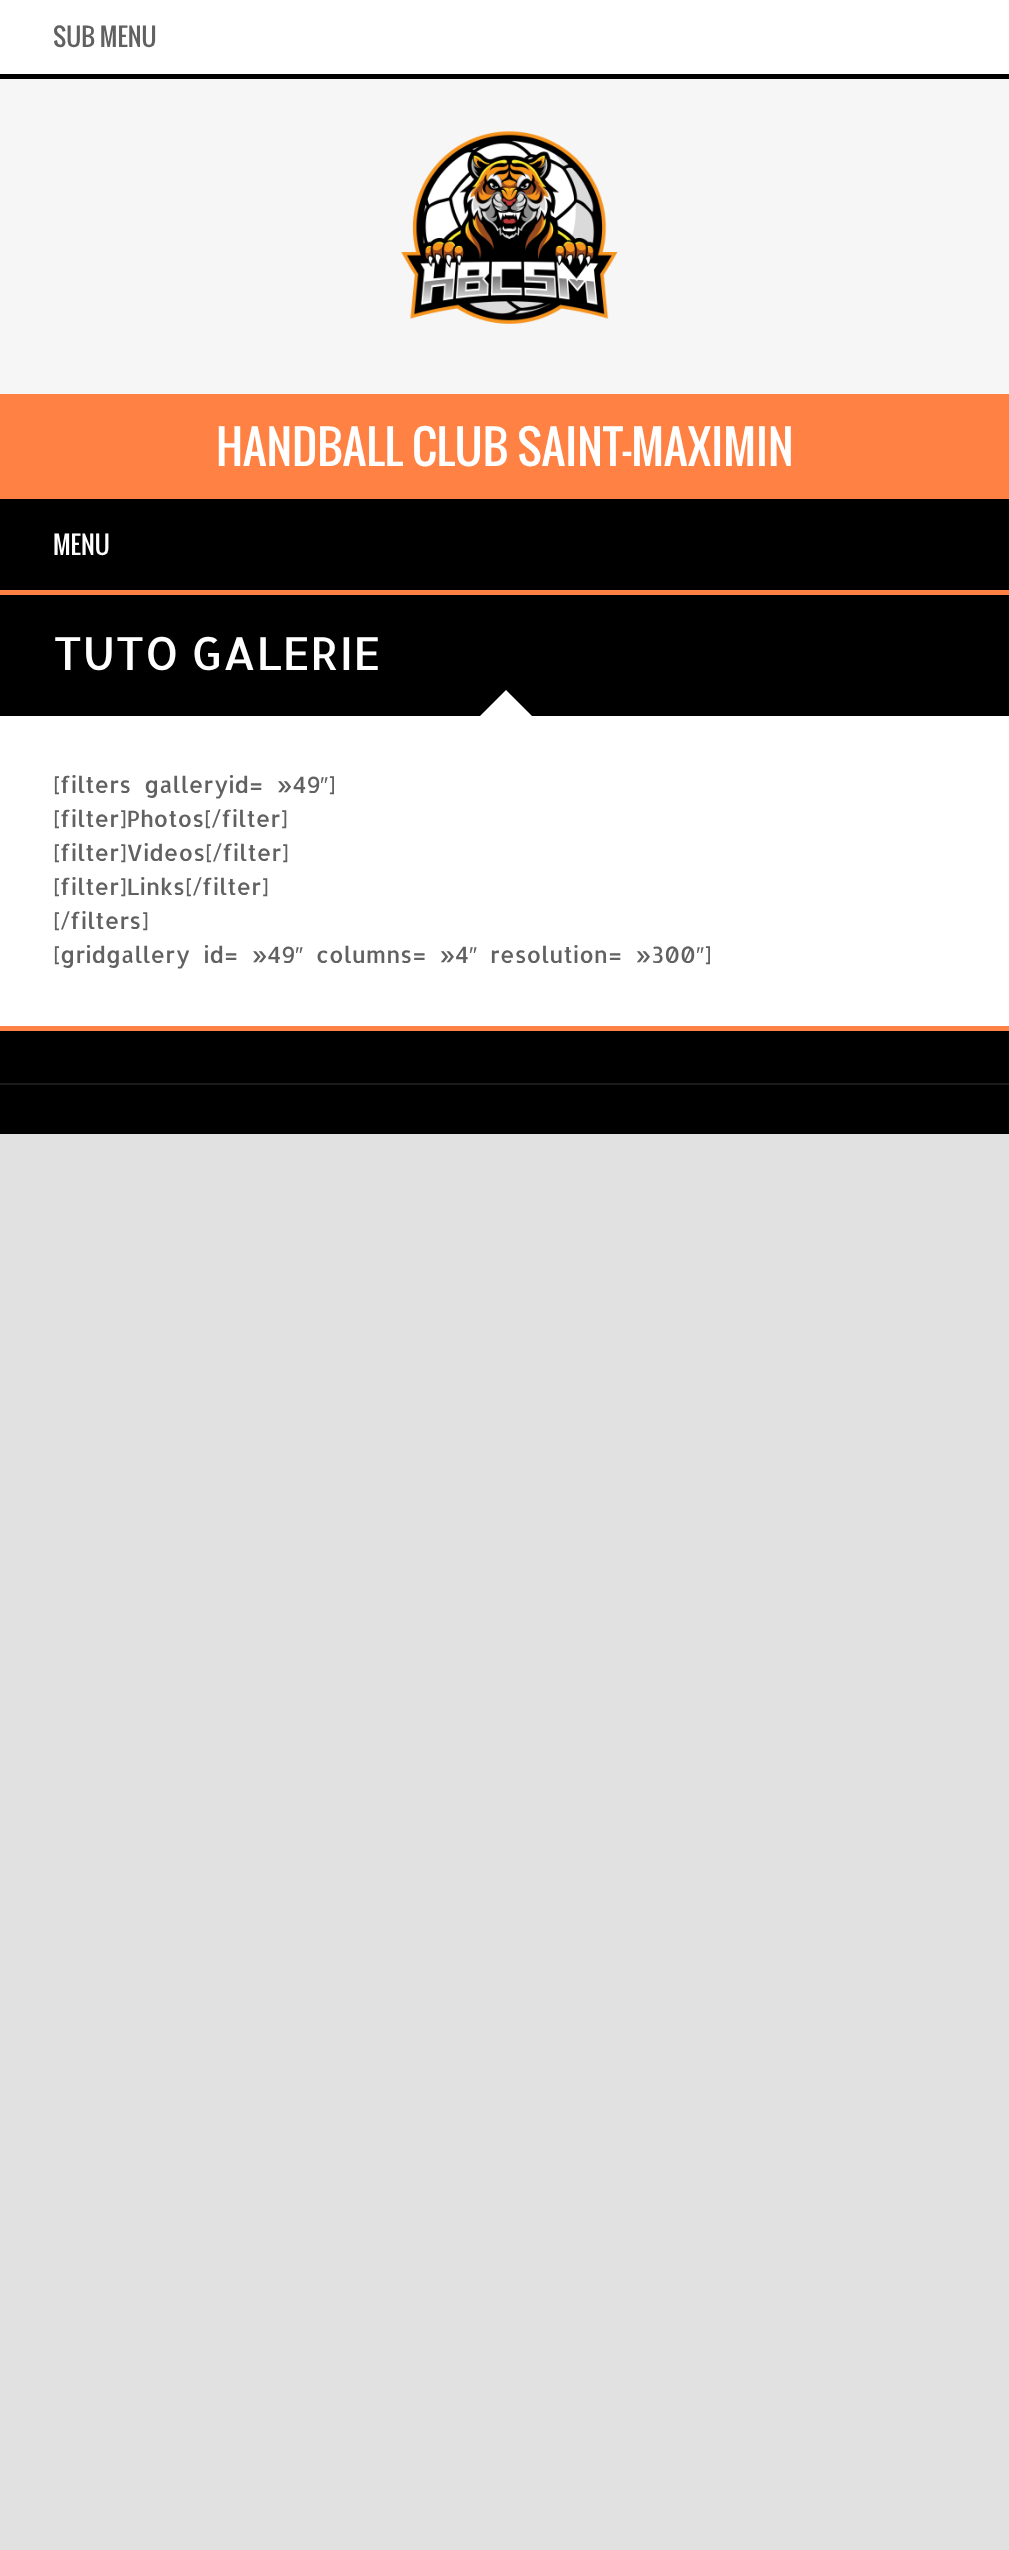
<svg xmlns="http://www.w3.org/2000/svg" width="1009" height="2550">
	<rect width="100%" height="100%" fill="#E1E1E1" />
	<rect x="0" y="0" width="1009" height="74" fill="#FFFFFF" />
	<rect x="0" y="74" width="1009" height="5" fill="#000000" />
	<text x="53" y="47" font-family="Oswald" font-size="24.5" fill="#616161">SUB MENU</text>
	<rect x="0" y="79" width="1009" height="315" fill="#F6F6F6" />
	<image x="401" y="131" width="217" height="193" href="assets/img1.png" />
	<rect x="0" y="394" width="1009" height="105" fill="#FF8143" />
	<text x="216" y="466" font-family="Oswald" font-size="45.5" fill="#FFFFFF">HANDBALL CLUB SAINT-MAXIMIN</text>
	<rect x="0" y="499" width="1009" height="91" fill="#000000" />
	<rect x="0" y="590" width="1009" height="5" fill="#FF8143" />
	<text x="53" y="555" font-family="Oswald" font-size="24.5" fill="#FFFFFF">MENU</text>
	<rect x="0" y="595" width="1009" height="121" fill="#000000" />
	<text x="53" y="670" font-family="Allerta" font-size="45.5" fill="#FFFFFF">TUTO GALERIE</text>
	<rect x="0" y="716" width="1009" height="310" fill="#FFFFFF" />
	<path d="M532 716H480L506 690Z" fill="#FFFFFF" />
	<text x="53" y="793" word-spacing="7" font-family="Allerta" font-size="22.75" fill="#616161">[filters galleryid= »49</text>
	<text x="320" y="793" font-family="Liberation Sans" font-size="22.75" fill="#616161">″</text>
	<g font-family="Allerta" font-size="22.75" fill="#616161">
		<text x="328" y="793">]</text>
		<text x="53" y="827">[filter]Photos[/filter]</text>
		<text x="53" y="861">[filter]Videos[/filter]</text>
		<text x="53" y="895">[filter]Links[/filter]</text>
		<text x="53" y="929">[/filters]</text>
		<text x="53" y="963" word-spacing="7">[gridgallery id= »49</text>
	</g>
	<text x="295" y="963" font-family="Liberation Sans" font-size="22.75" fill="#616161">″</text>
	<text x="316" y="963" font-family="Allerta" font-size="22.75" fill="#616161">columns=</text>
	<text x="439" y="963" font-family="Allerta" font-size="22.75" fill="#616161">»4</text>
	<text x="469" y="963" font-family="Liberation Sans" font-size="22.75" fill="#616161">″</text>
	<text x="490" y="963" font-family="Allerta" font-size="22.75" fill="#616161">resolution=</text>
	<text x="635" y="963" font-family="Allerta" font-size="22.75" fill="#616161">»300</text>
	<text x="696" y="963" font-family="Liberation Sans" font-size="22.75" fill="#616161">″</text>
	<text x="704" y="963" font-family="Allerta" font-size="22.75" fill="#616161">]</text>
	<rect x="0" y="1031" width="1009" height="103" fill="#000000" />
	<rect x="0" y="1026" width="1009" height="5" fill="#FF8143" />
	<rect x="0" y="1083" width="1009" height="2" fill="#1A1A1A" />
</svg>
